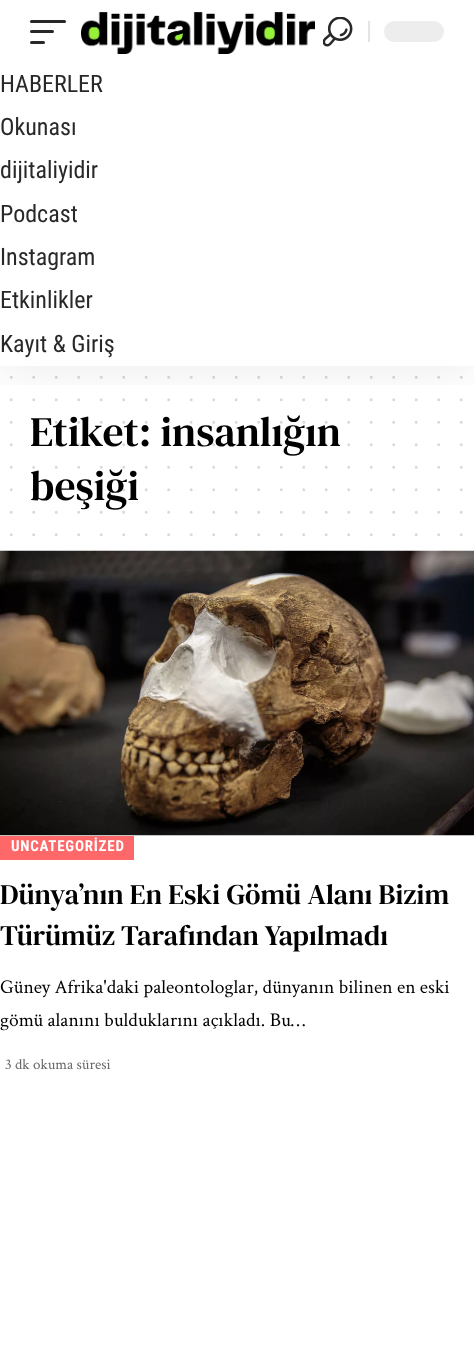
<svg xmlns="http://www.w3.org/2000/svg" width="474" height="1366">
	<defs>
		<clipPath id="clip1"><rect x="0" y="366" width="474" height="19" /></clipPath>
	</defs>
	<rect width="100%" height="100%" fill="#FFFFFF" />
	<path d="M11.2 377.2H461.5" fill="none" stroke="#D9D9D9" stroke-width="3" stroke-linecap="round" stroke-dasharray="0 22.5" />
	<path d="M11.2 399.8H461.5" fill="none" stroke="#D9D9D9" stroke-width="3" stroke-linecap="round" stroke-dasharray="0 22.5" />
	<text x="30" y="446" font-family="DM Serif Text" font-size="42" fill="#000000">Etiket: insanlığın</text>
	<path d="M11.2 422.2H461.5" fill="none" stroke="#000000" stroke-opacity="0.15" stroke-width="3" stroke-linecap="round" stroke-dasharray="0 22.5" />
	<g clip-path="url(#clip1)">
		<rect x="0" y="6" width="474" height="366" fill="#000000" fill-opacity="0.07" filter="blur(22.5px)" />
	</g>
	<rect x="30" y="20" width="36" height="3" rx="1.5" fill="#282828" />
	<rect x="30" y="30" width="24" height="3" rx="1.5" fill="#282828" />
	<rect x="30" y="41" width="15" height="3" rx="1.5" fill="#282828" />
	<image x="81" y="12" width="234" height="42" href="assets/img1.png" />
	<image x="323" y="17" width="30" height="30" href="assets/img2.png" />
	<rect x="368" y="21" width="2" height="21" fill="#E4E4E4" />
	<rect x="384" y="21" width="60" height="21" rx="10.5" fill="#EDEDED" />
	<g font-family="Roboto Condensed" font-size="24" fill="#282828">
		<text x="0" y="92">HABERLER</text>
		<text x="0" y="135">Okunası</text>
		<text x="0" y="178">dijitaliyidir</text>
		<text x="0" y="222">Podcast</text>
		<text x="0" y="265">Instagram</text>
		<text x="0" y="308">Etkinlikler</text>
		<text x="0" y="352">Kayıt &amp; Giriş</text>
	</g>
	<path d="M11.2 444.8H461.5" fill="none" stroke="#000000" stroke-opacity="0.15" stroke-width="3" stroke-linecap="round" stroke-dasharray="0 22.5" />
	<path d="M11.2 467.2H461.5" fill="none" stroke="#D9D9D9" stroke-width="3" stroke-linecap="round" stroke-dasharray="0 22.5" />
	<text x="30" y="500" font-family="DM Serif Text" font-size="42" fill="#000000">beşiği</text>
	<path d="M11.2 489.8H461.5" fill="none" stroke="#000000" stroke-opacity="0.15" stroke-width="3" stroke-linecap="round" stroke-dasharray="0 22.5" />
	<path d="M11.2 512.2H461.5" fill="none" stroke="#D9D9D9" stroke-width="3" stroke-linecap="round" stroke-dasharray="0 22.5" />
	<path d="M11.2 534.8H461.5" fill="none" stroke="#D9D9D9" stroke-width="3" stroke-linecap="round" stroke-dasharray="0 22.5" />
	<image x="0" y="550" width="474" height="286" href="assets/img3.png" />
	<rect x="0" y="836" width="134" height="24" fill="#FF6868" />
	<text x="11" y="851" font-family="Roboto Condensed" font-size="15" font-weight="700" letter-spacing="0.75" fill="#FFFFFF">UNCATEGORİZED</text>
	<g font-family="DM Serif Text" font-size="28.5" fill="#000000">
		<text x="0" y="904">Dünya’nın En Eski Gömü Alanı Bizim</text>
		<text x="0" y="945">Türümüz Tarafından Yapılmadı</text>
	</g>
	<g font-family="Crimson Text" font-size="19.5" fill="#000000">
		<text x="0" y="993">Güney Afrika'daki paleontologlar, dünyanın bilinen en eski</text>
		<text x="0" y="1026">gömü alanını bulduklarını açıkladı. Bu…</text>
	</g>
	<text x="5" y="1069" font-family="Crimson Text" font-size="15" fill="#666666">3 dk okuma süresi</text>
</svg>
